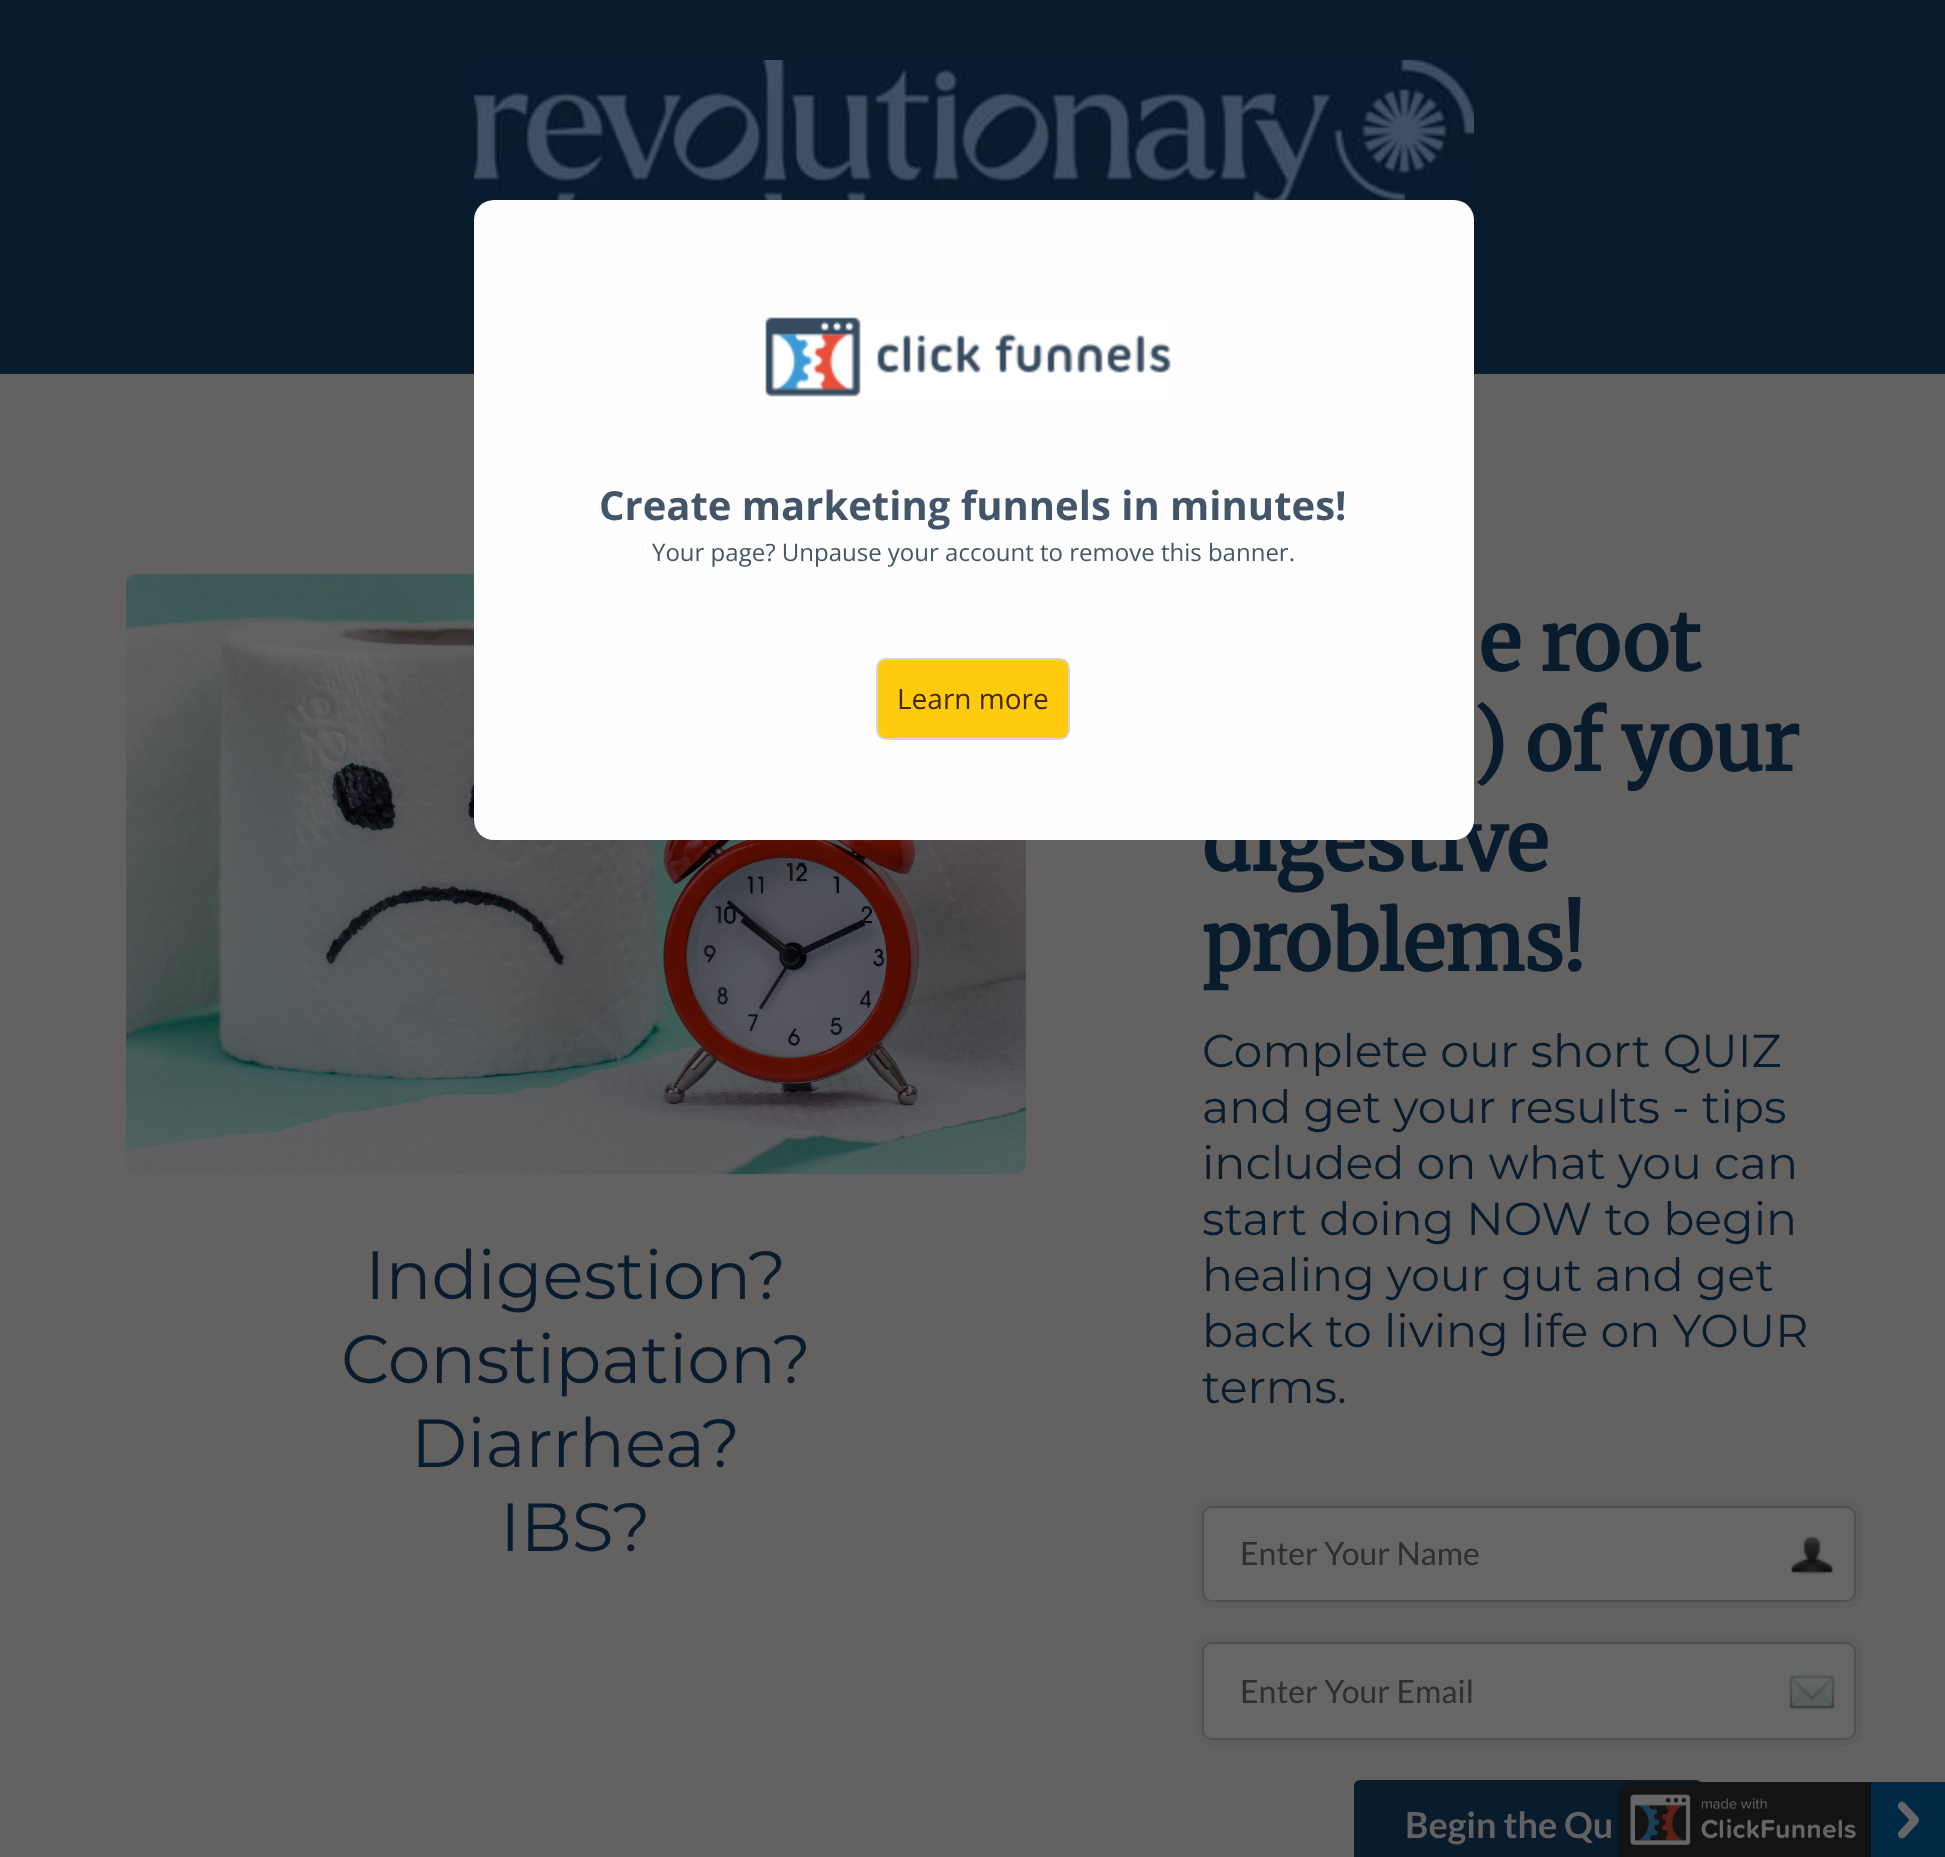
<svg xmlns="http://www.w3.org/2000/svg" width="1945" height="1857">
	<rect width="100%" height="100%" fill="#636261" />
	<rect x="0" y="0" width="1945" height="374" fill="#091C2E" />
	<image x="474" y="60" width="1000" height="160" href="assets/img2.png" />
	<image x="126" y="574" width="900" height="600" href="assets/img3.png" />
	<text x="1202" y="871" font-family="Merriweather" font-size="80" font-weight="700" fill="#091C2E">digestive</text>
	<rect x="474" y="200" width="1000" height="640" rx="20" fill="#FEFEFE" />
	<image x="765" y="317" width="406" height="80" href="assets/img1.png" />
	<text x="599" y="520" font-family="Open Sans" font-size="40" font-weight="700" fill="#435569">Create marketing funnels in minutes!</text>
	<text x="652" y="561" font-family="Open Sans" font-size="24" fill="#435569">Your page? Unpause your account to remove this banner.</text>
	<rect x="877" y="659" width="192" height="80" rx="9" fill="#FFCB0E" stroke="#D4D4D4" stroke-width="2" />
	<text x="897" y="709" font-family="Open Sans" font-size="28" fill="#432811">Learn more</text>
	<g font-family="Montserrat" font-size="68" font-weight="100" fill="#091C2E">
		<text x="365" y="1299">Indigestion?</text>
		<text x="341" y="1383">Constipation?</text>
		<text x="411" y="1467">Diarrhea?</text>
		<text x="500" y="1551">IBS?</text>
	</g>
	<g font-family="Merriweather" font-size="80" font-weight="700" fill="#091C2E">
		<text x="1479" y="671">e root</text>
		<text x="1472" y="771">) of your</text>
		<text x="1202" y="971">problems!</text>
	</g>
	<g font-family="Montserrat" font-size="46" font-weight="100" fill="#091C2E">
		<text x="1202" y="1067">Complete our short QUIZ</text>
		<text x="1202" y="1123">and get your results - tips</text>
		<text x="1202" y="1179">included on what you can</text>
		<text x="1202" y="1235">start doing NOW to begin</text>
		<text x="1202" y="1291">healing your gut and get</text>
		<text x="1202" y="1347">back to living life on YOUR</text>
		<text x="1202" y="1403">terms.</text>
	</g>
	<rect x="1199" y="1503" width="660" height="102" rx="13" fill="none" stroke="#5E5E5C" stroke-width="6" />
	<rect x="1202" y="1506" width="654" height="96" rx="10" fill="#666666" />
	<image x="1791" y="1535" width="42" height="40" href="assets/img4.png" />
	<rect x="1203" y="1507" width="652" height="94" rx="9" fill="none" stroke="#000000" stroke-opacity="0.2" stroke-width="2" />
	<text x="1240" y="1565" font-family="Lato" font-size="32" fill="#2F2F2F">Enter Your Name</text>
	<rect x="1199" y="1639" width="660" height="104" rx="13" fill="none" stroke="#5E5E5C" stroke-width="6" />
	<rect x="1202" y="1642" width="654" height="98" rx="10" fill="#666666" />
	<image x="1789" y="1675" width="46" height="34" href="assets/img5.png" />
	<rect x="1203" y="1643" width="652" height="96" rx="9" fill="none" stroke="#000000" stroke-opacity="0.2" stroke-width="2" />
	<text x="1240" y="1703" font-family="Lato" font-size="32" fill="#2F2F2F">Enter Your Email</text>
	<rect x="1354" y="1780" width="348" height="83" rx="6" fill="#091C2E" />
	<text x="1405" y="1838" font-family="Lato" font-size="36" font-weight="700" fill="#636261">Begin the Qu</text>
	<image x="1618" y="1782" width="327" height="75" href="assets/img6.png" />
</svg>
